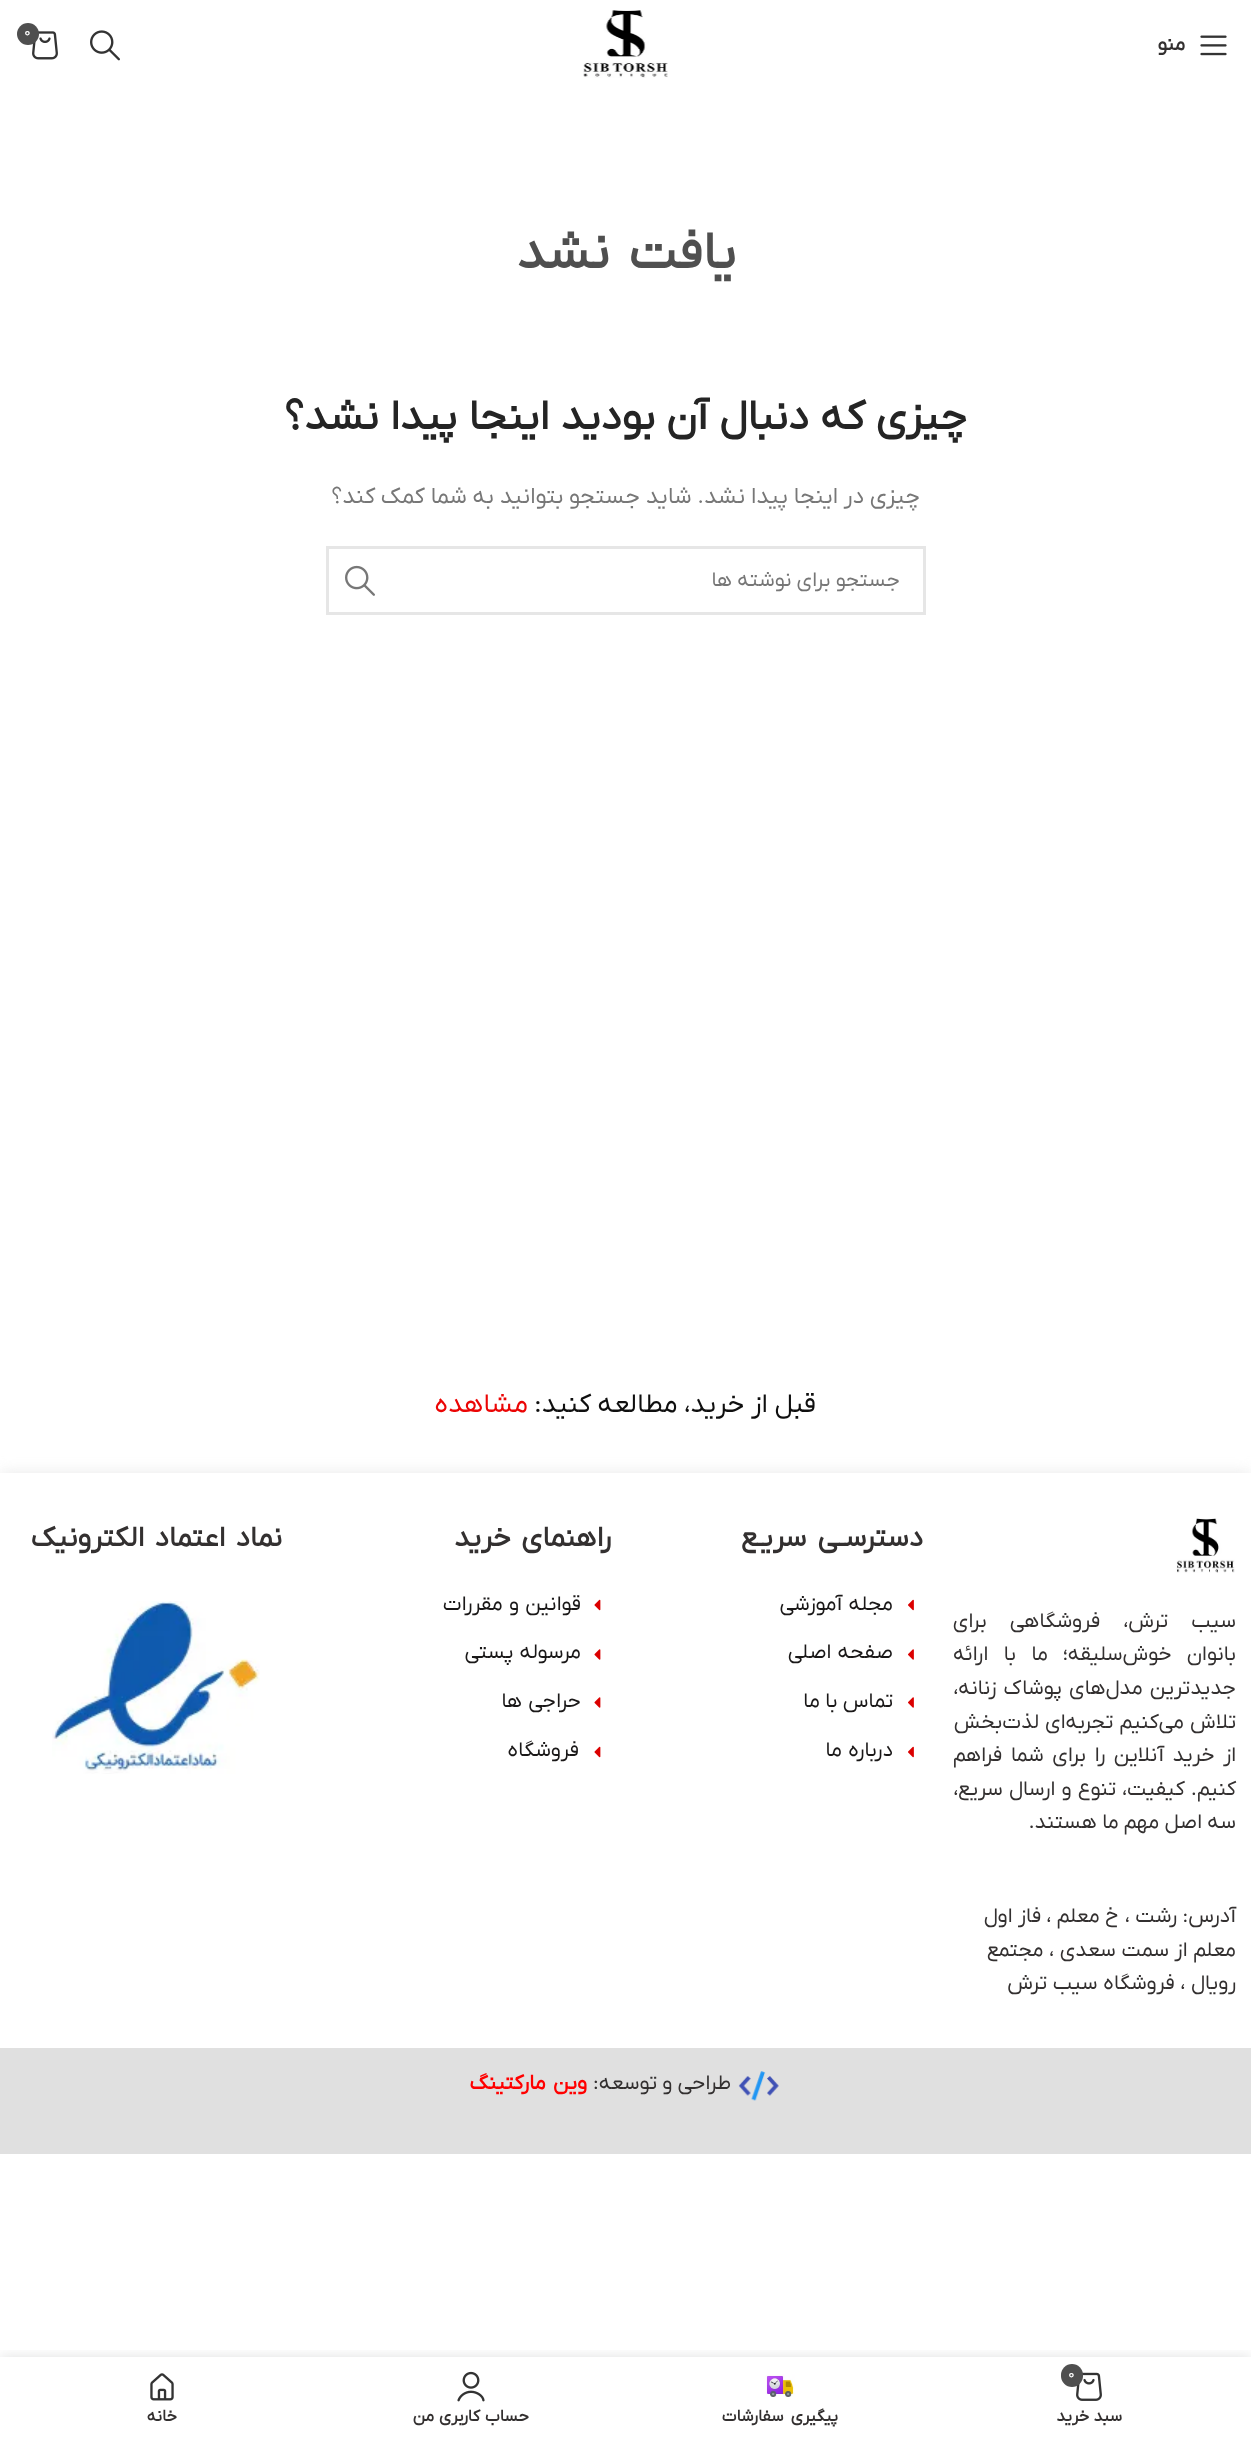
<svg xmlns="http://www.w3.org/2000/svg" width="1251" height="2439">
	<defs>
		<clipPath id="clip1"><path d="M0 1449H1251V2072H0ZM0 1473H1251V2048H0Z" clip-rule="evenodd" /></clipPath>
		<clipPath id="clip2"><rect x="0" y="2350" width="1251" height="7" /></clipPath>
	</defs>
	<rect width="100%" height="100%" fill="#FFFFFF" />
	<image x="583" y="10" width="85" height="68" href="assets/img1.png" />
	<image x="90" y="30" width="30" height="31" href="assets/img2.png" />
	<image x="32" y="31" width="26" height="29" href="assets/img3.png" />
	<circle cx="28" cy="34" r="11" fill="#4F4F4F" />
	<text x="24" y="36" font-family="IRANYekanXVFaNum" font-size="14" fill="#FFFFFF">0</text>
	<image x="1200" y="35" width="27" height="21" href="assets/img4.png" />
	<text x="1185" y="50" font-family="IRANYekanXVFaNum" font-size="20" font-weight="700" direction="rtl" fill="#333030">منو</text>
	<text x="736" y="268" word-spacing="6" font-family="IRANYekanXVFaNum" font-size="52.5" font-weight="700" direction="rtl" fill="#4F4F4F">یافت نشد</text>
	<text x="967" y="429" word-spacing="0.75" font-family="IRANYekanXVFaNum" font-size="42" font-weight="700" direction="rtl" fill="#242424">چیزی که دنبال آن بودید اینجا پیدا نشد؟</text>
	<text x="920" y="503" font-family="IRANYekanXVFaNum" font-size="23.1" direction="rtl" fill="#777777">چیزی در اینجا پیدا نشد. شاید جستجو بتوانید به شما کمک کند؟</text>
	<rect x="327.5" y="547.5" width="597" height="66" fill="none" stroke="#E6E6E6" stroke-width="3" />
	<text x="900" y="586" font-family="IRANYekanXVFaNum" font-size="21" direction="rtl" fill="#777777">جستجو برای نوشته ها</text>
	<image x="345" y="565" width="30" height="31" href="assets/img5.png" />
	<text x="816" y="1412" font-family="IRANYekanXVFaNum" font-size="27" direction="rtl" fill="#0F0F0F">قبل از خرید، مطالعه کنید:</text>
	<text x="528" y="1412" font-family="IRANYekanXVFaNum" font-size="27" direction="rtl" fill="#EB0505">مشاهده</text>
	<g clip-path="url(#clip1)">
		<rect x="0" y="1473" width="1251" height="575" fill="#D1D1D1" fill-opacity="0.5" filter="blur(7.5px)" />
	</g>
	<image x="1176" y="1518" width="59" height="55" href="assets/img6.png" />
	<g font-family="IRANYekanXVFaNum" font-size="21" direction="rtl" fill="#333030">
		<text x="1236" y="1627" word-spacing="18">سیب ترش، فروشگاهی برای</text>
		<text x="1236" y="1660" word-spacing="10">بانوان خوش‌سلیقه؛ ما با ارائه</text>
		<text x="1236" y="1694" word-spacing="2">جدیدترین مدل‌های پوشاک زنانه،</text>
		<text x="1236" y="1728" word-spacing="1">تلاش می‌کنیم تجربه‌ای لذت‌بخش</text>
		<text x="1236" y="1761" word-spacing="3.25">از خرید آنلاین را برای شما فراهم</text>
		<text x="1236" y="1795" word-spacing="1">کنیم. کیفیت، تنوع و ارسال سریع،</text>
		<text x="1236" y="1828">سه اصل مهم ما هستند.</text>
		<text x="1236" y="1922" word-spacing="0.25">آدرس: رشت ، خ معلم ، فاز اول</text>
		<text x="1236" y="1956" word-spacing="0.5">معلم از سمت سعدی ، مجتمع</text>
		<text x="1236" y="1989" word-spacing="0.5">رویال ، فروشگاه سیب ترش</text>
	</g>
	<text x="923" y="1546" word-spacing="4" font-family="IRANYekanXVFaNum" font-size="28.5" font-weight="700" direction="rtl" fill="#333030">دسترسـی سریـع</text>
	<image x="908" y="1599" width="6" height="12" href="assets/img7.png" />
	<text x="893" y="1610" word-spacing="1" font-family="IRANYekanXVFaNum" font-size="21" direction="rtl" fill="#1A1818">مجله آموزشی</text>
	<image x="908" y="1649" width="6" height="11" href="assets/img8.png" />
	<text x="893" y="1658" word-spacing="1" font-family="IRANYekanXVFaNum" font-size="21" direction="rtl" fill="#1A1818">صفحه اصلی</text>
	<image x="908" y="1697" width="6" height="11" href="assets/img8.png" />
	<text x="893" y="1707" font-family="IRANYekanXVFaNum" font-size="21" direction="rtl" fill="#1A1818">تماس با ما</text>
	<image x="908" y="1746" width="6" height="12" href="assets/img7.png" />
	<text x="893" y="1756" word-spacing="1" font-family="IRANYekanXVFaNum" font-size="21" direction="rtl" fill="#1A1818">درباره ما</text>
	<text x="611" y="1546" word-spacing="3" font-family="IRANYekanXVFaNum" font-size="28.5" font-weight="700" direction="rtl" fill="#333030">راهنمای خرید</text>
	<image x="594" y="1599" width="7" height="12" href="assets/img9.png" />
	<text x="581" y="1610" word-spacing="1" font-family="IRANYekanXVFaNum" font-size="21" direction="rtl" fill="#1A1818">قوانین و مقررات</text>
	<image x="594" y="1649" width="7" height="11" href="assets/img10.png" />
	<text x="581" y="1658" word-spacing="1" font-family="IRANYekanXVFaNum" font-size="21" direction="rtl" fill="#1A1818">مرسوله پستی</text>
	<image x="594" y="1697" width="7" height="11" href="assets/img10.png" />
	<text x="581" y="1707" word-spacing="1" font-family="IRANYekanXVFaNum" font-size="21" direction="rtl" fill="#1A1818">حراجی ها</text>
	<image x="594" y="1746" width="7" height="12" href="assets/img9.png" />
	<text x="579" y="1756" font-family="IRANYekanXVFaNum" font-size="21" direction="rtl" fill="#1A1818">فروشگاه</text>
	<text x="282" y="1546" word-spacing="3" font-family="IRANYekanXVFaNum" font-size="28.5" font-weight="700" direction="rtl" fill="#333030">نماد اعتماد الکترونیک</text>
	<image x="52" y="1601" width="208" height="173" href="assets/img11.png" />
	<rect x="0" y="2048" width="1251" height="106" fill="#E0E0E0" />
	<image x="738" y="2071" width="41" height="30" href="assets/img12.png" />
	<text x="731" y="2089" font-family="IRANYekanXVFaNum" font-size="21" direction="rtl" fill="#333030">طراحی و توسعه:</text>
	<text x="587" y="2089" word-spacing="2" font-family="IRANYekanXVFaNum" font-size="21" font-weight="700" direction="rtl" fill="#FF0000">وین مارکتینگ</text>
	<g clip-path="url(#clip2)">
		<rect x="0" y="2357" width="1251" height="82" fill="#000000" fill-opacity="0.12" filter="blur(7px)" />
	</g>
	<image x="1076" y="2372" width="26" height="29" href="assets/img13.png" />
	<rect x="1061" y="2364" width="22" height="23" rx="11" fill="#4F4F4F" />
	<text x="1068" y="2378" font-family="IRANYekanXVFaNum" font-size="14" fill="#FFFFFF">0</text>
	<text x="1122" y="2421" font-family="IRANYekanXVFaNum" font-size="16.5" font-weight="700" direction="rtl" fill="#333030">سبد خرید</text>
	<image x="765" y="2374" width="30" height="23" href="assets/img14.png" />
	<text x="838" y="2421" word-spacing="3" font-family="IRANYekanXVFaNum" font-size="16.5" font-weight="700" direction="rtl" fill="#333030">پیگیری سفارشات</text>
	<image x="457" y="2371" width="28" height="31" href="assets/img15.png" />
	<text x="529" y="2421" word-spacing="1" font-family="IRANYekanXVFaNum" font-size="16.5" font-weight="700" direction="rtl" fill="#333030">حساب کاربری من</text>
	<image x="150" y="2373" width="24" height="28" href="assets/img16.png" />
	<text x="177" y="2421" font-family="IRANYekanXVFaNum" font-size="16.5" font-weight="700" direction="rtl" fill="#333030">خانه</text>
</svg>
